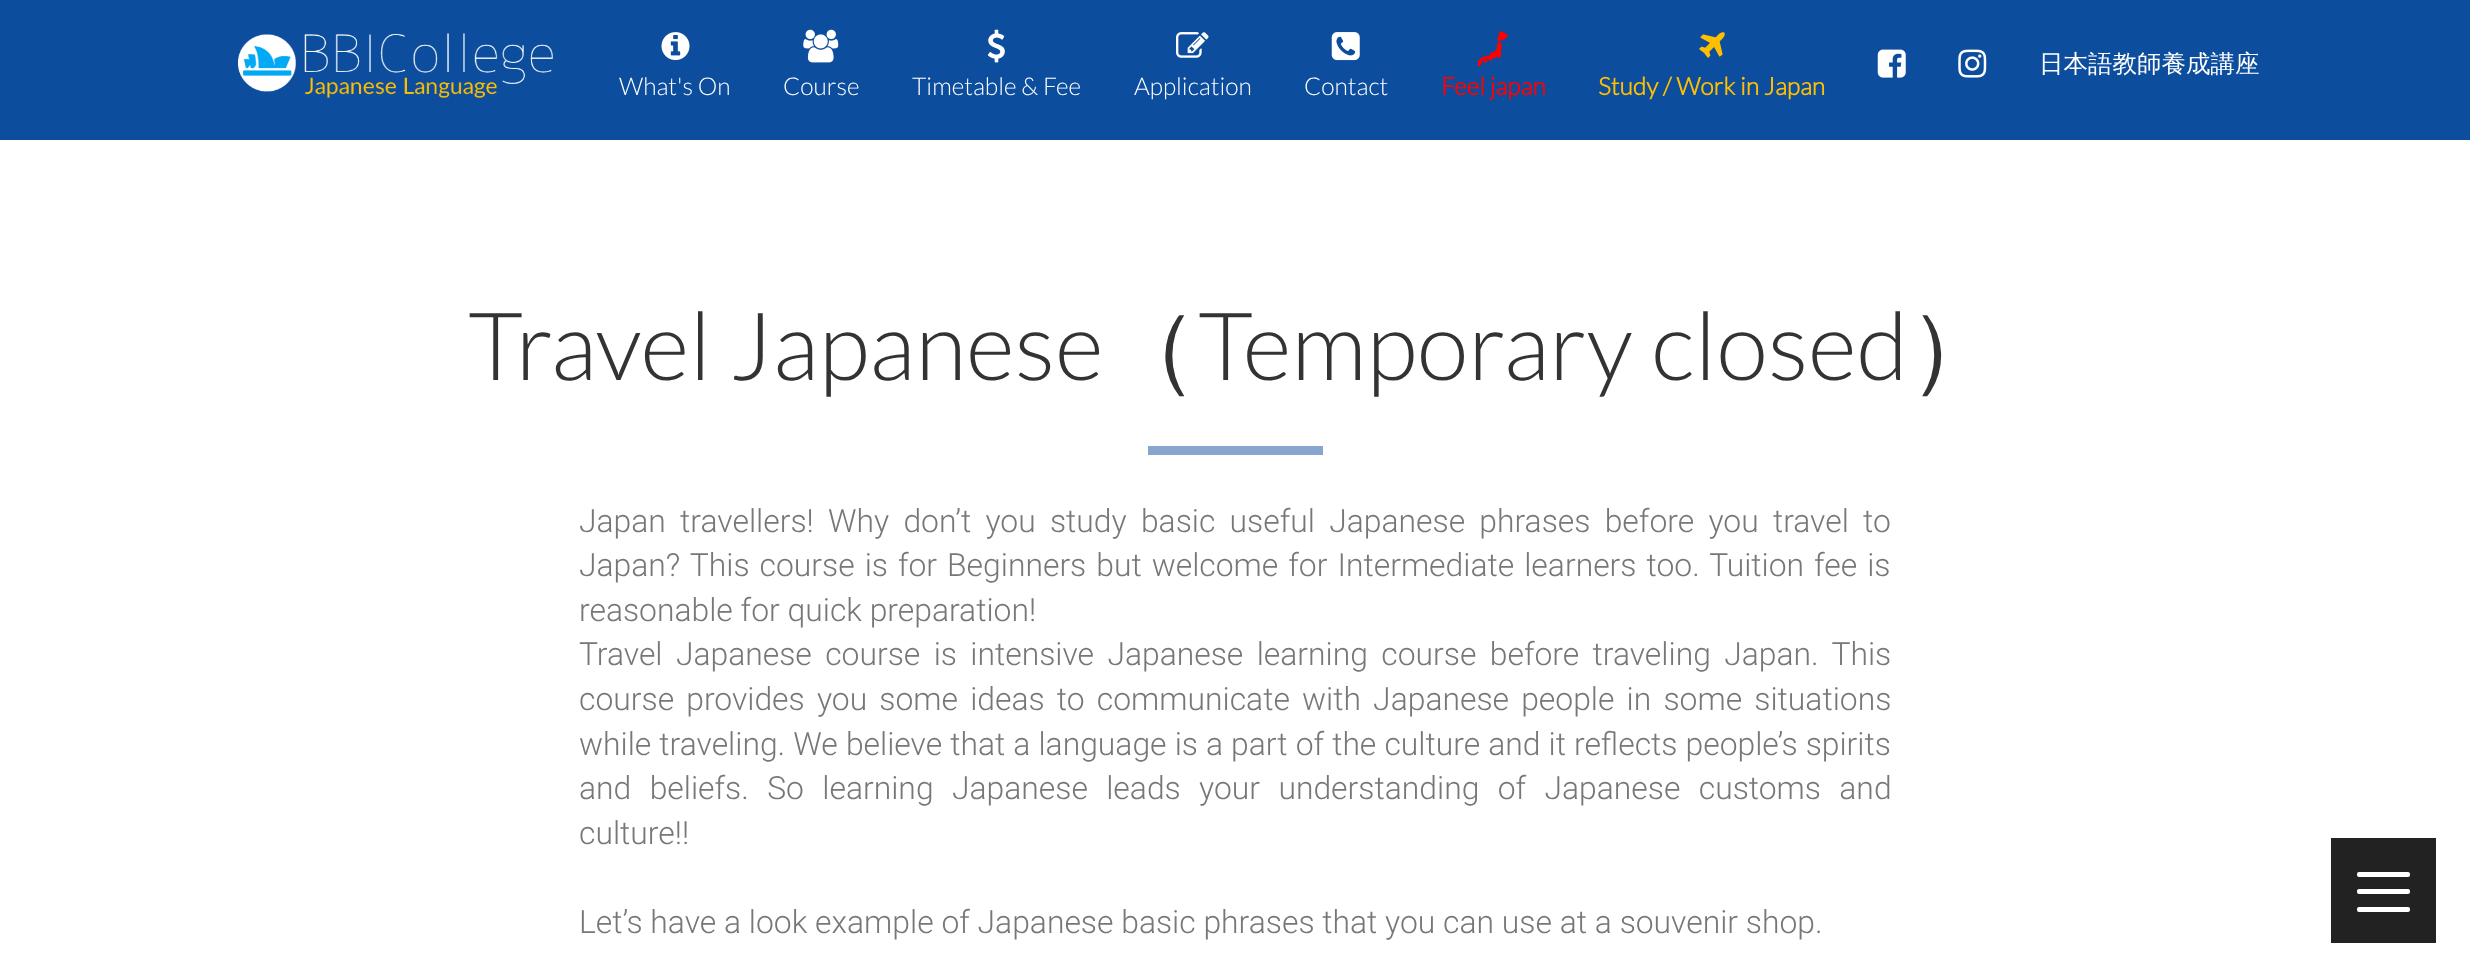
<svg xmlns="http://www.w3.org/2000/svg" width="2470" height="978">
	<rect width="100%" height="100%" fill="#FFFFFF" />
	<rect x="0" y="0" width="2470" height="140" fill="#0C4D9D" />
	<image x="238" y="33" width="315" height="65" href="assets/img1.png" />
	<image x="1877" y="49" width="29" height="29" href="assets/img2.png" />
	<image x="1958" y="49" width="29" height="29" href="assets/img3.png" />
	<text x="2039" y="72" font-family="WenQuanYi Zen Hei" font-size="24.5" font-weight="500" fill="#FFFFFF">日本語教師養成講座</text>
	<image x="661" y="32" width="29" height="29" href="assets/img4.png" />
	<text x="619" y="95" font-family="Lato" font-size="24.5" font-weight="300" fill="#FFFFFF">What's On</text>
	<image x="803" y="29" width="36" height="34" href="assets/img5.png" />
	<text x="783" y="95" font-family="Lato" font-size="24.5" font-weight="300" fill="#FFFFFF">Course</text>
	<image x="987" y="29" width="18" height="34" href="assets/img6.png" />
	<text x="912" y="95" font-family="Lato" font-size="24.5" font-weight="300" fill="#FFFFFF">Timetable &amp; Fee</text>
	<image x="1176" y="32" width="33" height="26" href="assets/img7.png" />
	<text x="1134" y="95" font-family="Lato" font-size="24.5" font-weight="300" fill="#FFFFFF">Application</text>
	<image x="1331" y="32" width="29" height="29" href="assets/img8.png" />
	<text x="1304" y="95" font-family="Lato" font-size="24.5" font-weight="300" fill="#FFFFFF">Contact</text>
	<image x="1477" y="31" width="31" height="36" href="assets/img9.png" />
	<text x="1441" y="95" font-family="Lato" font-size="24.5" font-weight="700" fill="#FF0000">Feel japan</text>
	<image x="1699" y="32" width="26" height="26" href="assets/img10.png" />
	<text x="1598" y="95" font-family="Lato" font-size="24.5" font-weight="700" fill="#FFBF00">Study / Work in Japan</text>
	<text x="468" y="380" font-family="Lato" font-size="94.5" font-weight="300" fill="#333333">Travel Japanese</text>
	<text x="1104" y="380" font-family="WenQuanYi Zen Hei" font-size="94.5" font-weight="500" fill="#333333">（</text>
	<text x="1198" y="380" font-family="Lato" font-size="94.5" font-weight="300" fill="#333333">Temporary closed</text>
	<text x="1908" y="380" font-family="WenQuanYi Zen Hei" font-size="94.5" font-weight="500" fill="#333333">）</text>
	<rect x="1148" y="446" width="175" height="9" fill="#86A6CE" />
	<g font-family="Roboto" font-size="31.85" font-weight="300" fill="#777777">
		<text x="579" y="532" word-spacing="6.5">Japan travellers! Why don’t you study basic useful Japanese phrases before you travel to</text>
		<text x="579" y="576" word-spacing="2.25">Japan? This course is for Beginners but welcome for Intermediate learners too. Tuition fee is</text>
		<text x="579" y="621">reasonable for quick preparation!</text>
		<text x="579" y="665" word-spacing="5.6">Travel Japanese course is intensive Japanese learning course before traveling Japan. This</text>
		<text x="579" y="710" word-spacing="4.4">course provides you some ideas to communicate with Japanese people in some situations</text>
		<text x="579" y="755" word-spacing="0.3">while traveling. We believe that a language is a part of the culture and it reflects people’s spirits</text>
		<text x="579" y="799" word-spacing="10.6">and beliefs. So learning Japanese leads your understanding of Japanese customs and</text>
		<text x="579" y="844">culture!!</text>
		<text x="579" y="933">Let’s have a look example of Japanese basic phrases that you can use at a souvenir shop.</text>
	</g>
	<rect x="2331" y="838" width="105" height="105" fill="#222222" />
	<rect x="2357" y="889" width="53" height="5" rx="2" fill="#FFFFFF" />
	<rect x="2357" y="872" width="53" height="5" rx="2" fill="#FFFFFF" />
	<rect x="2357" y="907" width="53" height="5" rx="2" fill="#FFFFFF" />
</svg>
